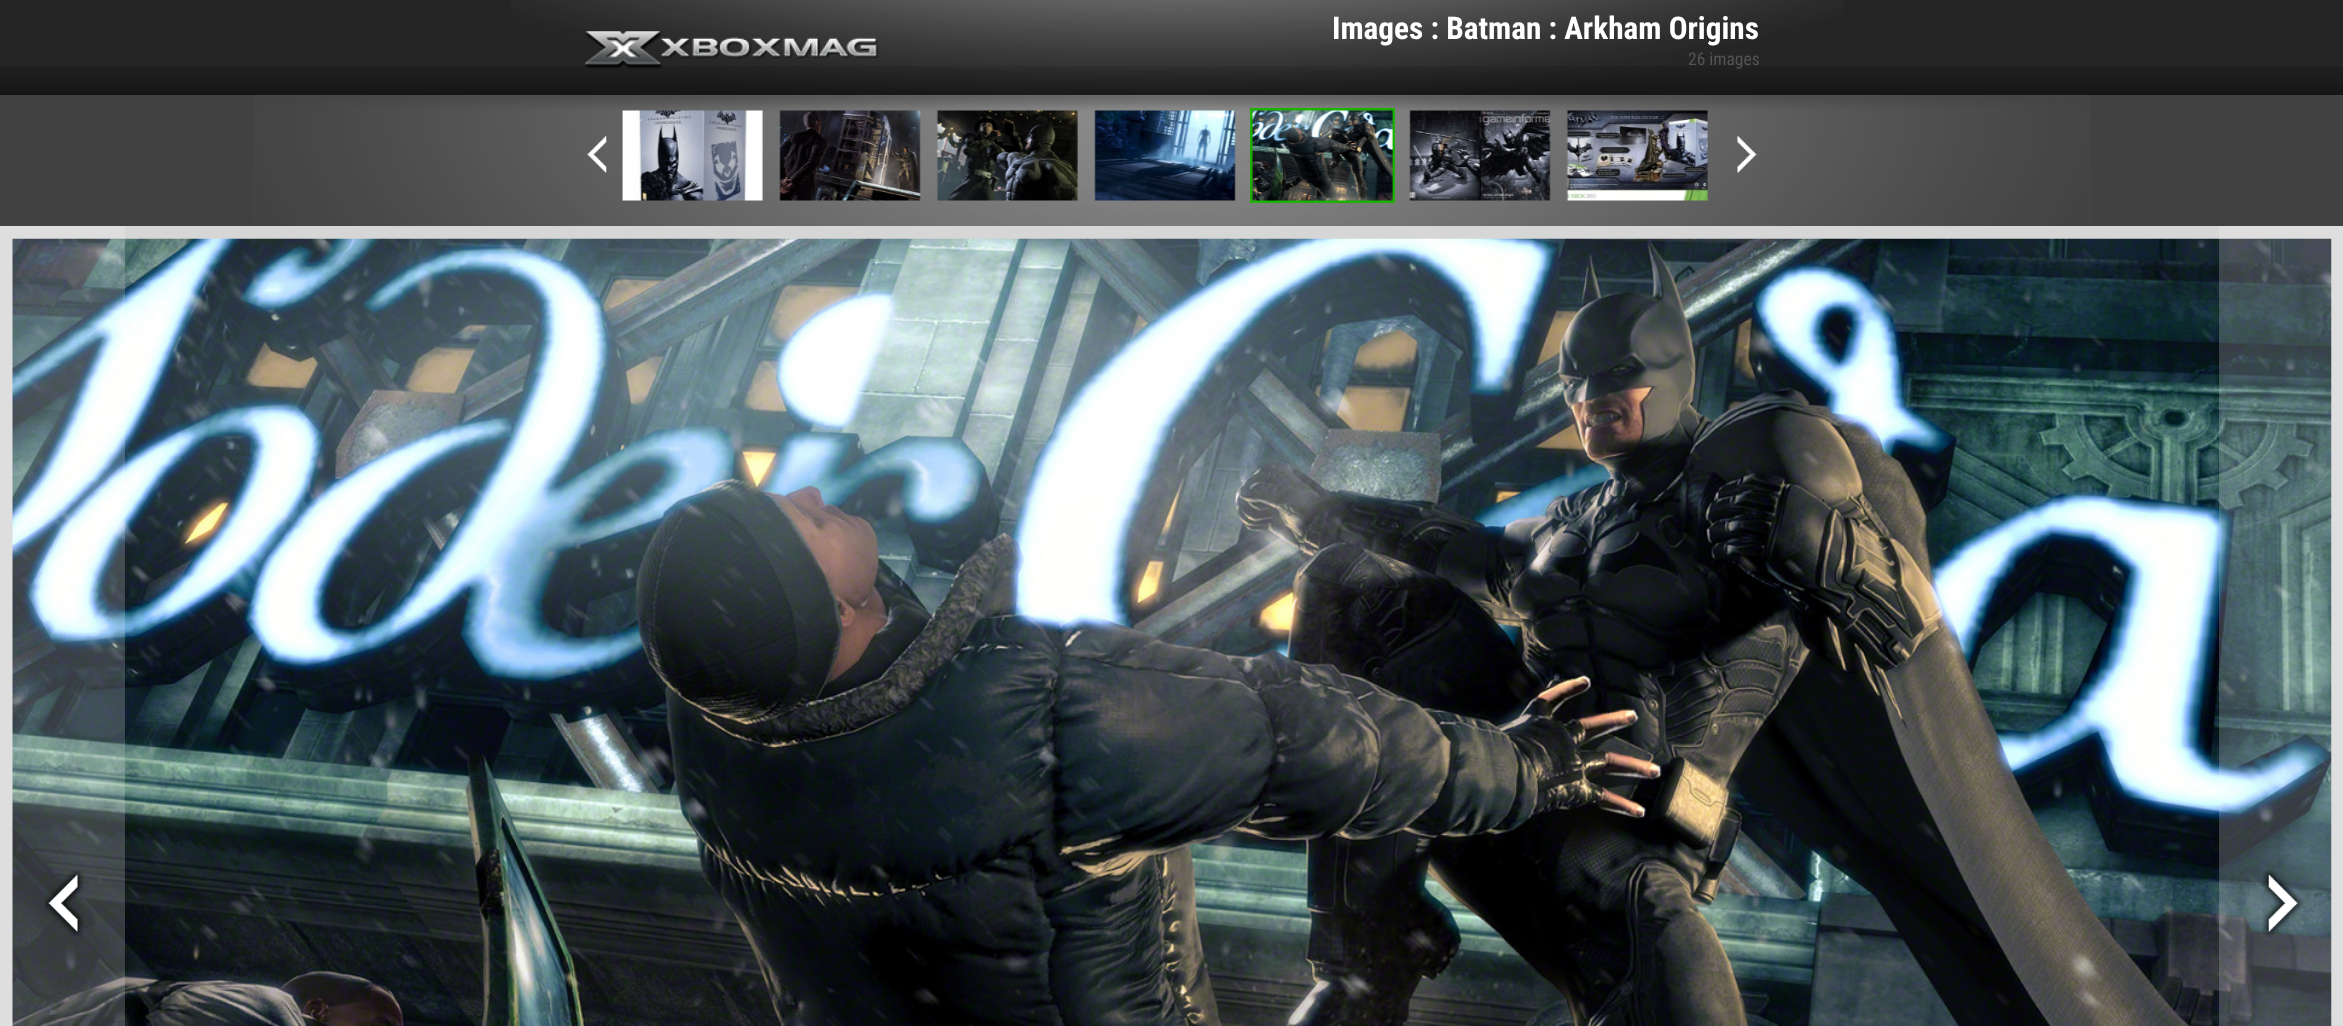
<svg xmlns="http://www.w3.org/2000/svg" width="2343" height="1026">
	<rect width="100%" height="100%" fill="#D6D6D6" />
	<rect x="0" y="0" width="2343" height="66" fill="#252525" />
	<image x="0" y="66" width="2343" height="29" href="assets/img1.png" />
	<image x="511" y="0" width="1333" height="95" href="assets/img2.png" />
	<image x="585" y="31" width="294" height="38" href="assets/img3.png" />
	<text x="1332" y="39" font-family="Roboto Condensed" font-size="31.25" font-weight="700" fill="#FFFFFF">Images : Batman : Arkham Origins</text>
	<text x="1688" y="65" font-family="Roboto Condensed" font-size="17.5" fill="#545454">26 images</text>
	<rect x="0" y="95" width="2343" height="131" fill="#414141" />
	<image x="254" y="95" width="1837" height="131" href="assets/img4.png" />
	<image x="587" y="136" width="20" height="37" href="assets/img5.png" />
	<image x="622" y="110" width="141" height="91" href="assets/img6.png" />
	<image x="779" y="110" width="142" height="91" href="assets/img7.png" />
	<image x="936" y="110" width="142" height="91" href="assets/img8.png" />
	<image x="1094" y="110" width="142" height="91" href="assets/img9.png" />
	<rect x="1251.5" y="109.5" width="142" height="92" fill="none" stroke="#1DB100" stroke-width="3" />
	<image x="1251" y="110" width="142" height="91" href="assets/img10.png" />
	<image x="1409" y="110" width="142" height="91" href="assets/img11.png" />
	<image x="1566" y="110" width="142" height="91" href="assets/img12.png" />
	<image x="1737" y="136" width="20" height="37" href="assets/img13.png" />
	<image x="12" y="238" width="2320" height="788" href="assets/img16.png" />
	<rect x="0" y="226" width="125" height="800" fill="#FFFFFF" fill-opacity="0.2" />
	<image x="44" y="870" width="40" height="67" href="assets/img14.png" />
	<rect x="2219" y="226" width="124" height="800" fill="#FFFFFF" fill-opacity="0.2" />
	<image x="2262" y="869" width="42" height="68" href="assets/img15.png" />
</svg>
